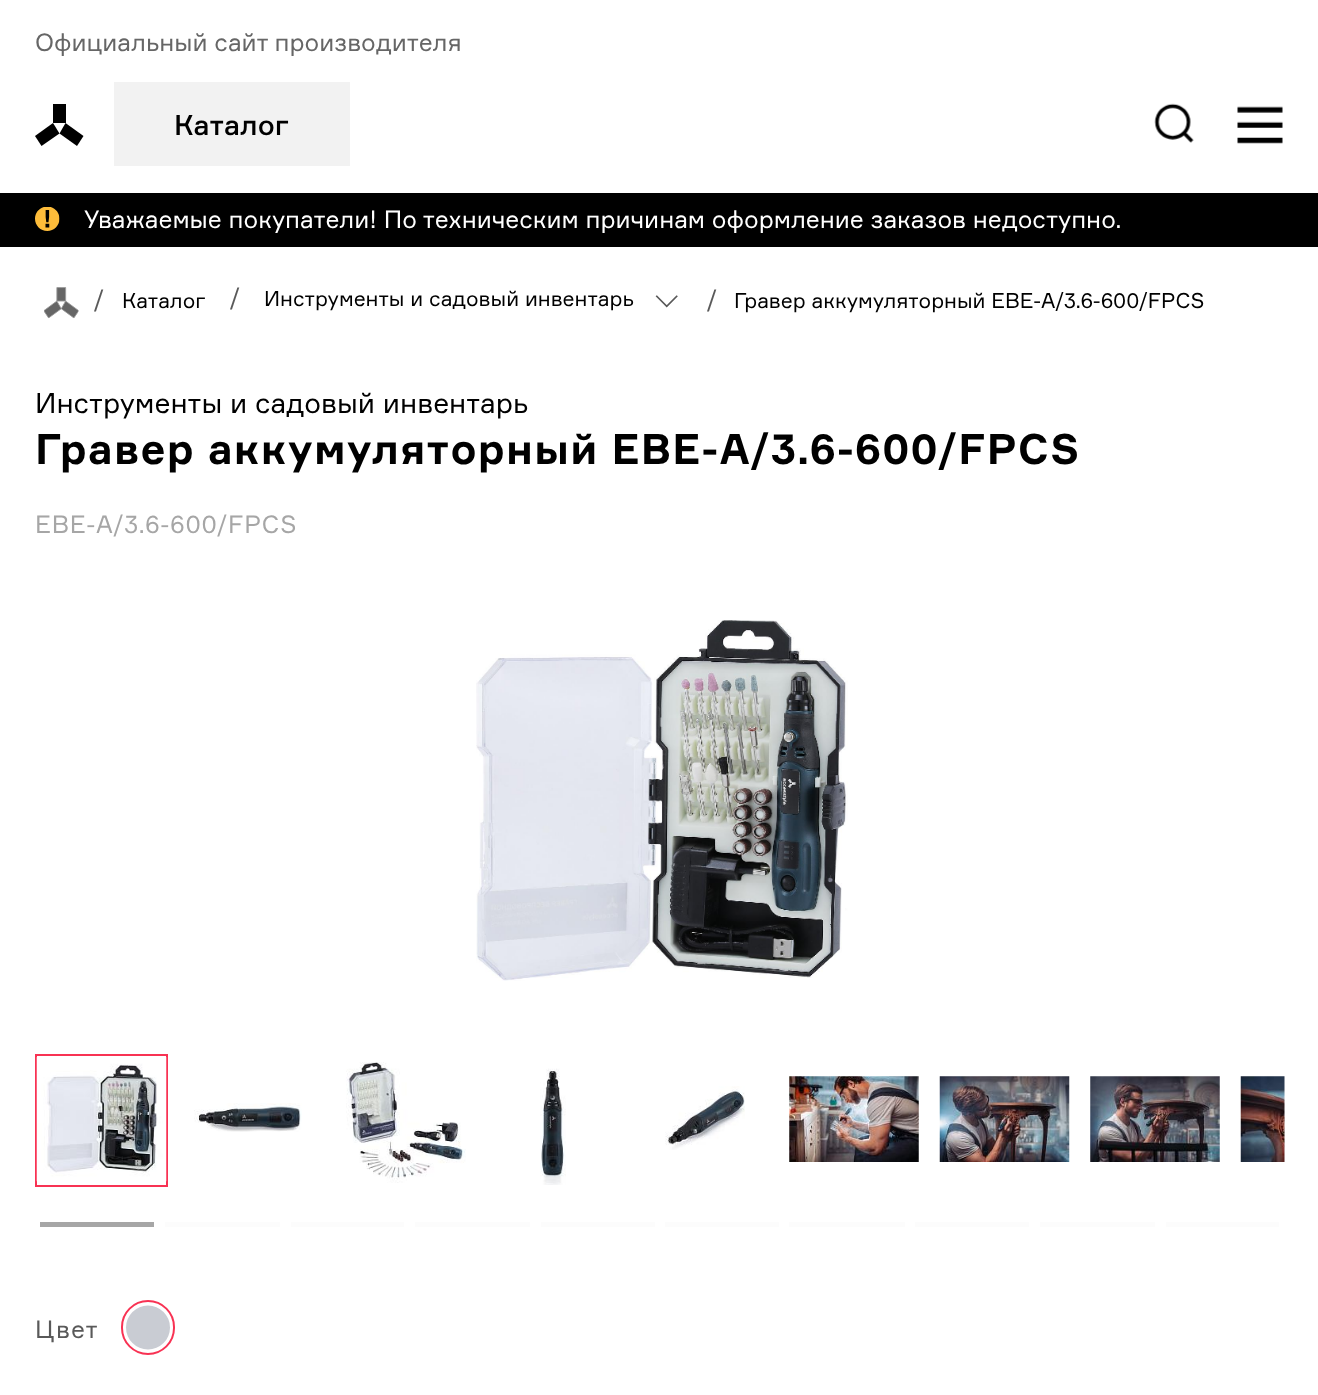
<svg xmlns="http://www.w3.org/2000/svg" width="1318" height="1395">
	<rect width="100%" height="100%" fill="#FFFFFF" />
	<text x="35" y="51" font-family="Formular" font-size="24.5" fill="#666666">Официальный сайт производителя</text>
	<rect x="114" y="82" width="236" height="84" fill="#F2F2F2" />
	<text x="174" y="135" font-family="Formular" font-size="28" font-weight="500" fill="#000000">Каталог</text>
	<image x="1154" y="103" width="40" height="40" href="assets/img1.png" />
	<image x="1237" y="106" width="46" height="38" href="assets/img2.png" />
	<path d="M35 136L41.5 146L59.5 133.5L53 123Z" fill="#000000" fill-rule="evenodd" />
	<rect x="53" y="104" width="13" height="19" fill="#000000" />
	<path d="M65.5 123L59.5 133.5L77 146L83.5 136Z" fill="#000000" fill-rule="evenodd" />
	<rect x="0" y="193" width="1318" height="54" fill="#000000" />
	<image x="35" y="207" width="25" height="24" href="assets/img3.png" />
	<text x="84" y="228" font-family="Formular" font-size="24.5" fill="#FFFFFF">Уважаемые покупатели! По техническим причинам оформление заказов недоступно.</text>
	<image x="44" y="287" width="35" height="32" href="assets/img4.png" />
	<text x="94" y="308" font-family="Formular" font-size="24.5" fill="#595959">/</text>
	<text x="122" y="308" font-family="Formular" font-size="21" fill="#000000">Каталог</text>
	<text x="230" y="306" font-family="Formular" font-size="24.5" fill="#595959">/</text>
	<text x="264" y="306" font-family="Formular" font-size="21" fill="#000000">Инструменты и садовый инвентарь</text>
	<image x="655" y="295" width="23" height="13" href="assets/img5.png" />
	<text x="707" y="308" font-family="Formular" font-size="24.5" fill="#595959">/</text>
	<text x="734" y="308" font-family="Formular" font-size="21" fill="#000000">Гравер аккумуляторный EBE-A/3.6-600/FPCS</text>
	<text x="35" y="413" font-family="Formular" font-size="28" fill="#000000">Инструменты и садовый инвентарь</text>
	<text x="35" y="464" font-family="Formular" font-size="42" font-weight="700" letter-spacing="1.25" fill="#000000">Гравер аккумуляторный EBE-A/3.6-600/FPCS</text>
	<text x="35" y="533" font-family="Formular" font-size="24.5" letter-spacing="0.75" fill="#A6A6A6">EBE-A/3.6-600/FPCS</text>
	<image x="476" y="620" width="372" height="361" href="assets/img6.png" />
	<rect x="40" y="1222" width="114" height="5" fill="#A6A6A6" />
	<rect x="165" y="1222" width="115" height="5" fill="#FCFCFC" />
	<rect x="291" y="1222" width="113" height="5" fill="#FCFCFC" />
	<rect x="415" y="1222" width="115" height="5" fill="#FCFCFC" />
	<rect x="541" y="1222" width="114" height="5" fill="#FCFCFC" />
	<rect x="665" y="1222" width="114" height="5" fill="#FCFCFC" />
	<rect x="789" y="1222" width="116" height="5" fill="#FCFCFC" />
	<rect x="915" y="1222" width="114" height="5" fill="#FCFCFC" />
	<rect x="1040" y="1222" width="115" height="5" fill="#FCFCFC" />
	<rect x="1166" y="1222" width="113" height="5" fill="#FCFCFC" />
	<rect x="36" y="1055" width="131" height="131" fill="none" stroke="#F83253" stroke-width="2" />
	<image x="36" y="1057" width="131" height="125" href="assets/img7.png" />
	<image x="194" y="1103" width="108" height="29" href="assets/img8.png" />
	<image x="346" y="1062" width="120" height="121" href="assets/img9.png" />
	<image x="540" y="1068" width="26" height="117" href="assets/img10.png" />
	<image x="665" y="1086" width="80" height="64" href="assets/img11.png" />
	<image x="789" y="1076" width="130" height="86" href="assets/img12.png" />
	<image x="939" y="1076" width="131" height="86" href="assets/img13.png" />
	<image x="1090" y="1076" width="130" height="86" href="assets/img14.png" />
	<image x="1240" y="1076" width="45" height="86" href="assets/img15.png" />
	<text x="35" y="1338" font-family="Formular" font-size="24.5" letter-spacing="1" fill="#595959">Цвет</text>
	<rect x="122" y="1301" width="52" height="53" rx="26" fill="none" stroke="#F83253" stroke-width="2" />
	<circle cx="148" cy="1327.5" r="22" fill="#C9CCD3" />
</svg>
